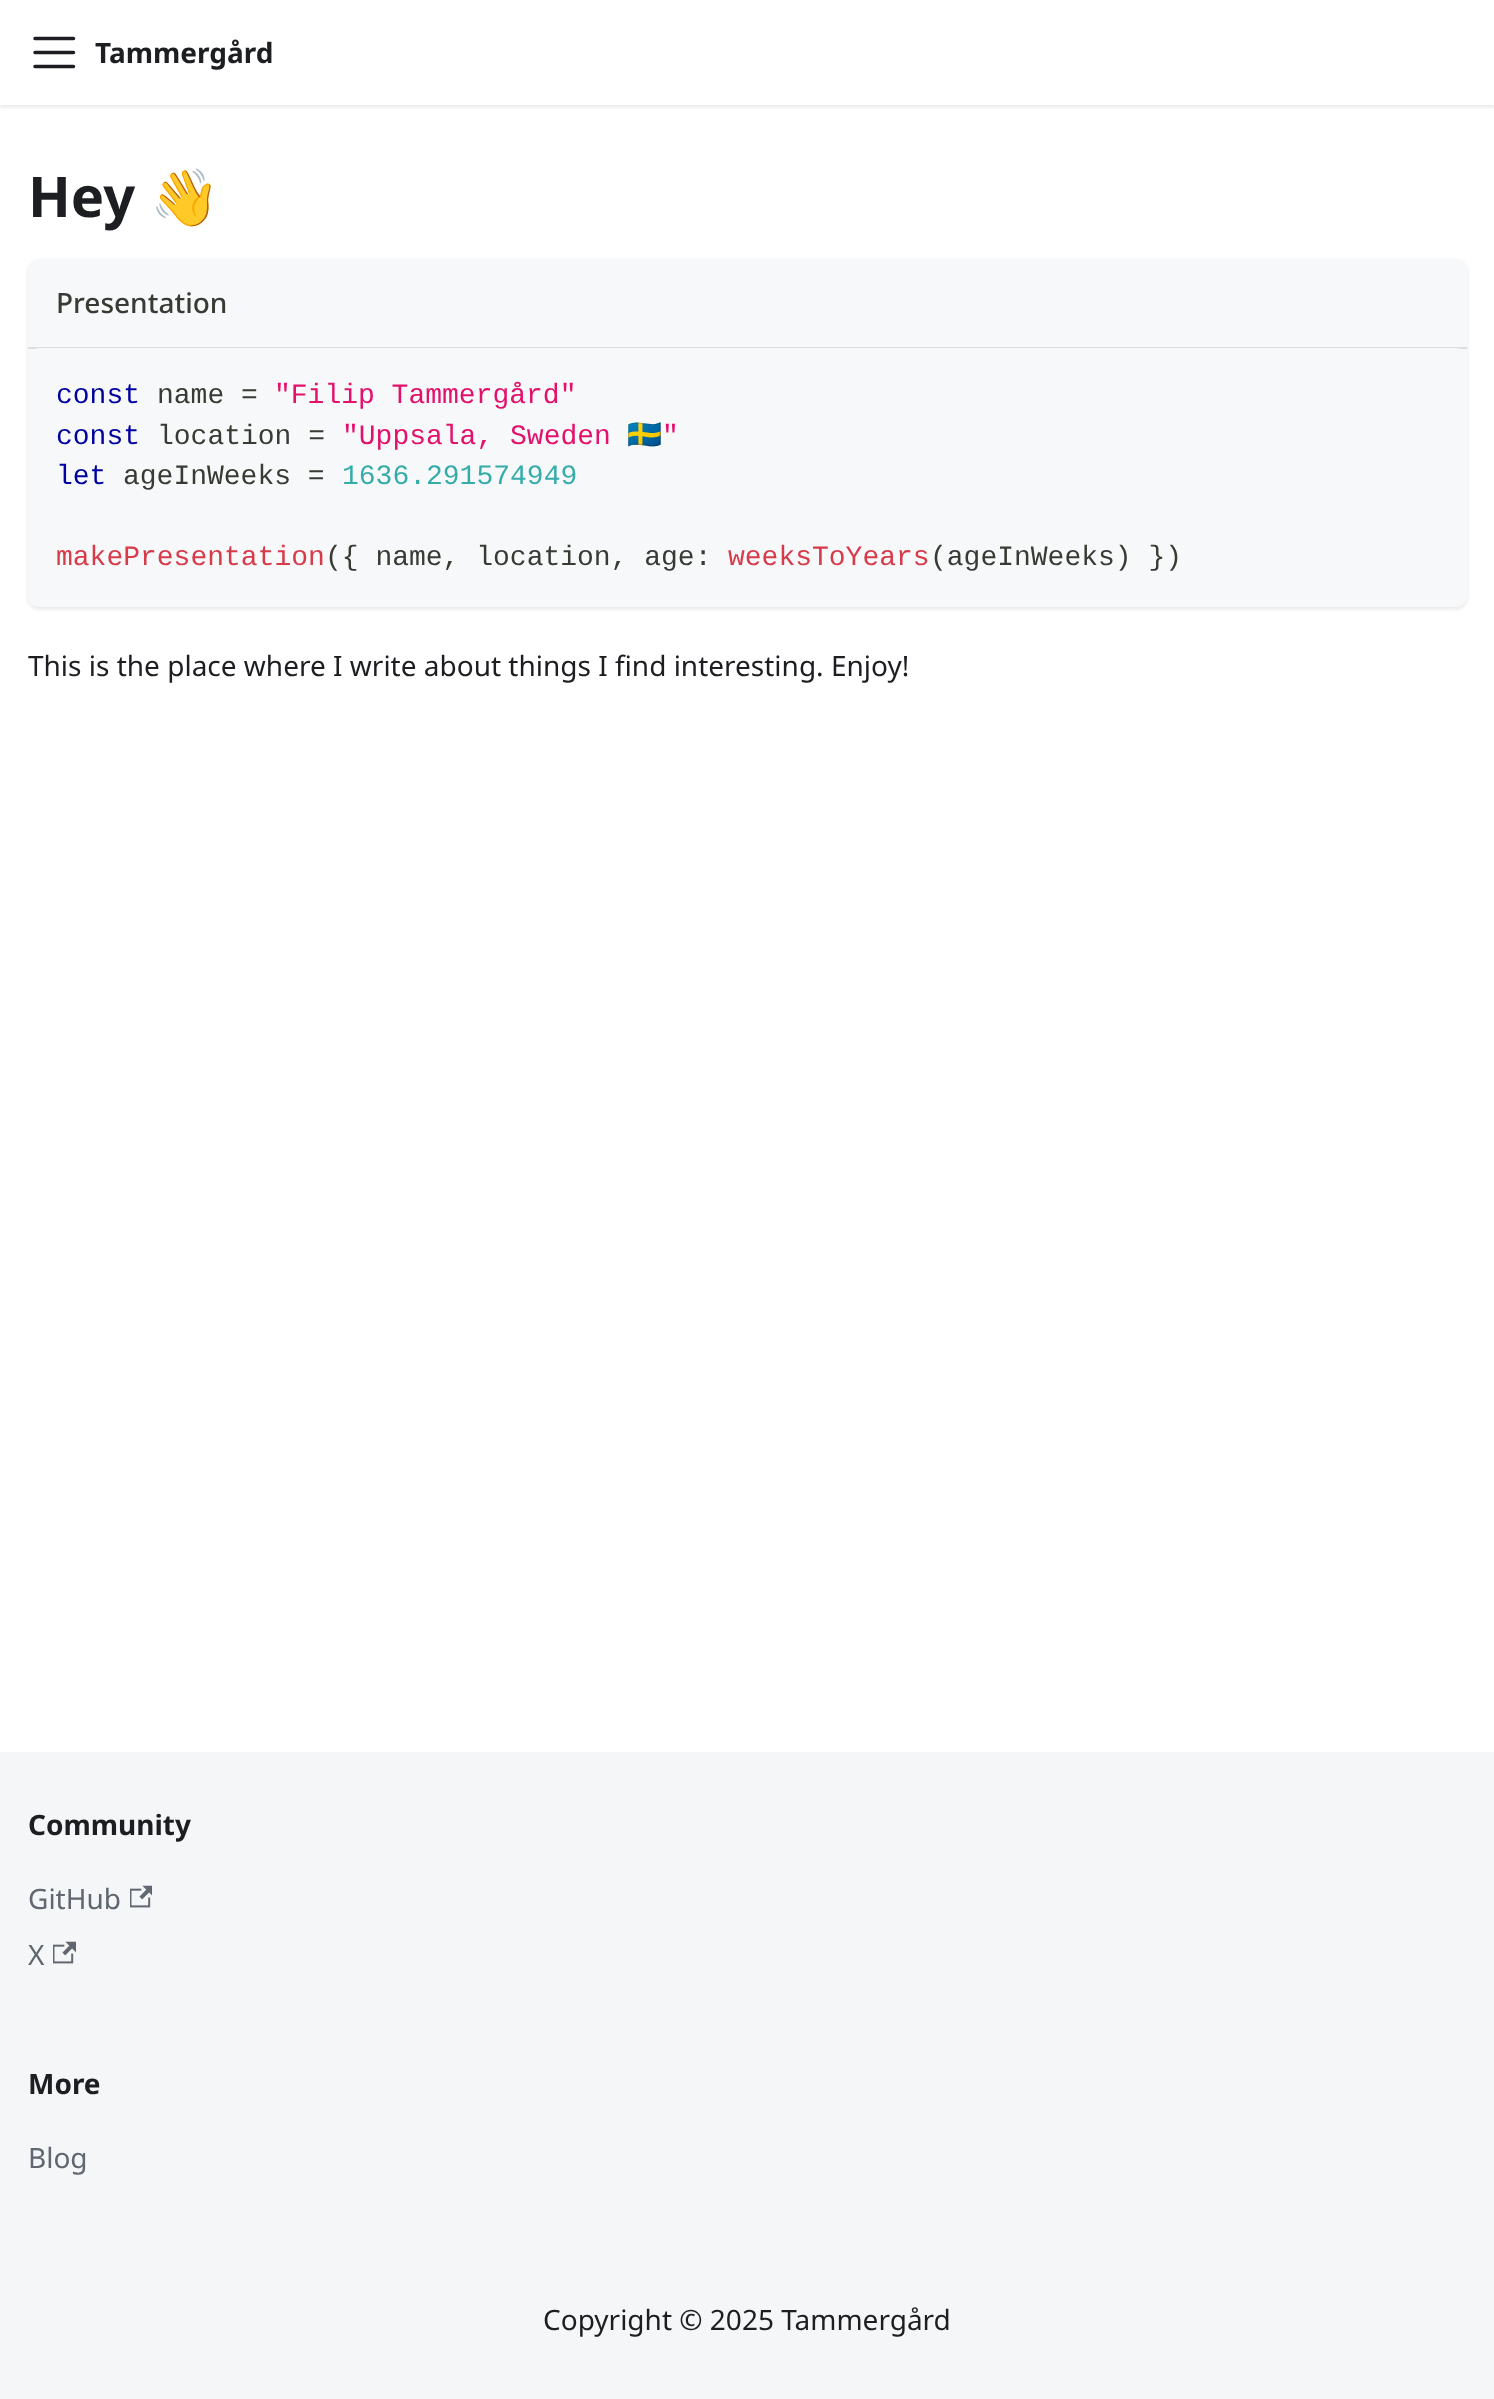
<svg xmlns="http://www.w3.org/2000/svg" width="1494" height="2399">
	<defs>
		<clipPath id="clip1"><rect x="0" y="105" width="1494" height="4" /></clipPath>
	</defs>
	<rect width="100%" height="100%" fill="#FFFFFF" />
	<g clip-path="url(#clip1)">
		<rect x="0" y="2" width="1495" height="105" fill="#000000" fill-opacity="0.1" filter="blur(2px)" />
	</g>
	<path d="M35 38.5H73.5M35 52.5H73.5M35 66.5H73.5" fill="none" stroke="#1C1E21" stroke-width="3.5" stroke-linecap="round" />
	<text x="95" y="63" font-family="Noto Sans" font-size="28" font-weight="700" fill="#1C1E21">Tammergård</text>
	<text x="28" y="217" font-family="Noto Sans" font-size="56" font-weight="700" fill="#1C1E21">Hey</text>
	<text x="150" y="217" font-family="Noto Color Emoji" font-size="56" font-weight="700" fill="#1C1E21">👋</text>
	<rect x="28" y="261" width="1439" height="348" rx="11" fill="#000000" fill-opacity="0.1" filter="blur(2px)" />
	<rect x="28" y="259" width="1439" height="348" rx="11" fill="#F6F8FA" />
	<rect x="28" y="347" width="1439" height="2" fill="#DADDE1" />
	<text x="56" y="313" font-family="Noto Sans" font-size="28" font-weight="500" fill="#393A34">Presentation</text>
	<rect x="28" y="348" width="1439" height="259" rx="11" fill="#F6F8FA" />
	<text x="56" y="403" font-family="Liberation Mono" font-size="28" fill="#00009F">const</text>
	<text x="157" y="403" font-family="Liberation Mono" font-size="28" fill="#393A34">name =</text>
	<text x="274" y="403" font-family="Liberation Mono" font-size="28" fill="#E3116C">"Filip Tammergård"</text>
	<text x="56" y="444" font-family="Liberation Mono" font-size="28" fill="#00009F">const</text>
	<text x="157" y="444" font-family="Liberation Mono" font-size="28" fill="#393A34">location =</text>
	<text x="342" y="444" font-family="Liberation Mono" font-size="28" fill="#E3116C">"Uppsala, Sweden</text>
	<text x="627" y="444" font-family="Noto Color Emoji" font-size="28" fill="#E3116C">🇸🇪</text>
	<text x="662" y="444" font-family="Liberation Mono" font-size="28" fill="#E3116C">"</text>
	<text x="56" y="484" font-family="Liberation Mono" font-size="28" fill="#00009F">let</text>
	<text x="123" y="484" font-family="Liberation Mono" font-size="28" fill="#393A34">ageInWeeks =</text>
	<text x="342" y="484" font-family="Liberation Mono" font-size="28" fill="#36ACAA">1636.291574949</text>
	<text x="56" y="565" font-family="Liberation Mono" font-size="28" fill="#D73A49">makePresentation</text>
	<text x="325" y="565" font-family="Liberation Mono" font-size="28" fill="#393A34">({ name, location, age:</text>
	<text x="728" y="565" font-family="Liberation Mono" font-size="28" fill="#D73A49">weeksToYears</text>
	<text x="930" y="565" font-family="Liberation Mono" font-size="28" fill="#393A34">(ageInWeeks) })</text>
	<text x="28" y="676" font-family="Noto Sans" font-size="28" fill="#1C1E21">This is the place where I write about things I find interesting. Enjoy!</text>
	<rect x="0" y="1752" width="1494" height="647" fill="#F5F6F7" />
	<text x="28" y="1835" font-family="Noto Sans" font-size="28" font-weight="700" fill="#1C1E21">Community</text>
	<text x="28" y="1909" font-family="Noto Sans" font-size="28" fill="#606770">GitHub</text>
	<image x="130" y="1885" width="22" height="23" href="assets/img1.png" />
	<text x="28" y="1965" font-family="Noto Sans" font-size="28" fill="#606770">X</text>
	<image x="53" y="1941" width="23" height="23" href="assets/img2.png" />
	<text x="28" y="2094" font-family="Noto Sans" font-size="28" font-weight="700" fill="#1C1E21">More</text>
	<text x="28" y="2168" font-family="Noto Sans" font-size="28" fill="#606770">Blog</text>
	<text x="543" y="2330" font-family="Noto Sans" font-size="28" fill="#1C1E21">Copyright © 2025 Tammergård</text>
</svg>
